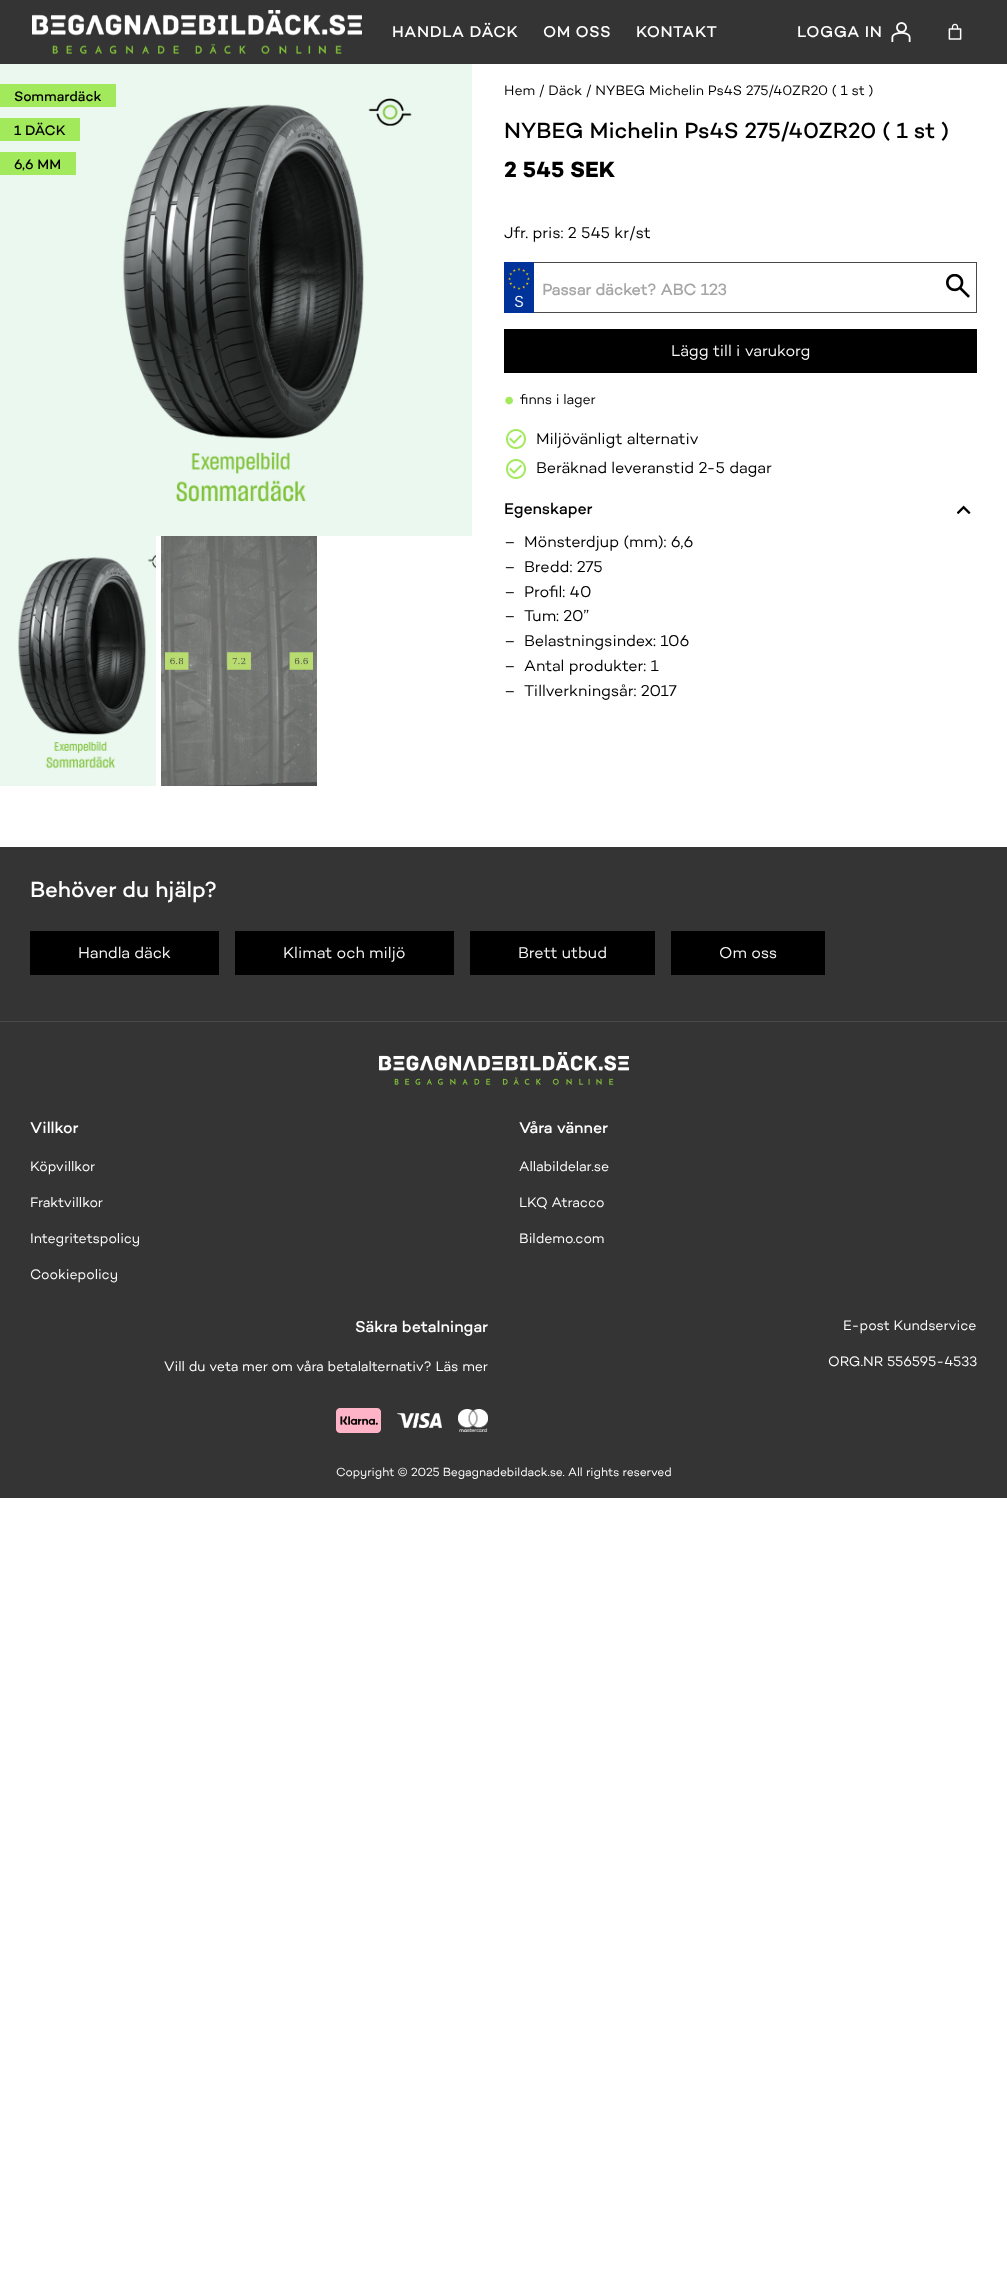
<svg xmlns="http://www.w3.org/2000/svg" width="1007" height="2274">
	<rect width="100%" height="100%" fill="#FFFFFF" />
	<rect x="0" y="0" width="1007" height="64" fill="#343434" />
	<image x="32" y="10" width="330" height="44" href="assets/img1.png" />
	<g font-family="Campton" font-size="16" font-weight="500" letter-spacing="0.6" fill="#FFFFFF">
		<text x="392" y="37">HANDLA DÄCK</text>
		<text x="543" y="37">OM OSS</text>
		<text x="636" y="37">KONTAKT</text>
		<text x="797" y="37">LOGGA IN</text>
	</g>
	<image x="891" y="22" width="20" height="20" href="assets/img2.png" />
	<image x="948" y="23" width="14" height="17" href="assets/img3.png" />
	<image x="0" y="64" width="472" height="472" href="assets/img4.png" />
	<rect x="0" y="84" width="116" height="23" fill="#A2E95C" />
	<text x="14" y="101" font-family="Campton" font-size="14" font-weight="500" fill="#000000">Sommardäck</text>
	<rect x="0" y="118" width="80" height="23" fill="#A2E95C" />
	<text x="14" y="135" font-family="Campton" font-size="14" font-weight="500" fill="#000000">1 DÄCK</text>
	<rect x="0" y="152" width="76" height="23" fill="#A2E95C" />
	<text x="14" y="169" font-family="Campton" font-size="14" font-weight="500" fill="#000000">6,6 MM</text>
	<image x="0" y="536" width="156" height="250" href="assets/img5.png" />
	<image x="161" y="536" width="156" height="250" href="assets/img6.png" />
	<text x="504" y="95" font-family="Campton" font-size="14" fill="#000000">Hem / Däck / NYBEG Michelin Ps4S 275/40ZR20 ( 1 st )</text>
	<text x="504" y="138" font-family="Campton" font-size="22.4" font-weight="500" fill="#000000">NYBEG Michelin Ps4S 275/40ZR20 ( 1 st )</text>
	<text x="504" y="177" font-family="Campton" font-size="22.4" font-weight="700" fill="#000000">2 545 SEK</text>
	<text x="504" y="238" font-family="Campton" font-size="16" fill="#000000">Jfr. pris: 2 545 kr/st</text>
	<rect x="504.5" y="262.5" width="472" height="50" fill="none" stroke="#494949" />
	<image x="504" y="262" width="30" height="51" href="assets/img7.png" />
	<text x="542" y="295" font-family="'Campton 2'" font-size="16" font-weight="700" fill="#A6A6A6">Passar däcket? ABC 123</text>
	<image x="946" y="274" width="24" height="24" href="assets/img8.png" />
	<rect x="504" y="329" width="473" height="44" fill="#000000" />
	<text x="671" y="356" font-family="Campton" font-size="16" fill="#F6F6F6">Lägg till i varukorg</text>
	<text x="504" y="410" font-family="Campton" font-size="32" fill="#A2E95C">•</text>
	<text x="520" y="404" font-family="Campton" font-size="14" fill="#000000">finns i lager</text>
	<image x="506" y="429" width="20" height="20" href="assets/img9.png" />
	<text x="536" y="444" font-family="Campton" font-size="16" fill="#000000">Miljövänligt alternativ</text>
	<image x="506" y="459" width="20" height="20" href="assets/img9.png" />
	<text x="536" y="473" font-family="Campton" font-size="16" fill="#000000">Beräknad leveranstid 2-5 dagar</text>
	<text x="504" y="514" font-family="Campton" font-size="16" font-weight="500" fill="#000000">Egenskaper</text>
	<image x="957" y="505" width="14" height="9" href="assets/img10.png" />
	<g font-family="Campton" font-size="16" fill="#000000">
		<text x="504" y="547">–</text>
		<text x="524" y="547">Mönsterdjup (mm): 6,6</text>
		<text x="504" y="572">–</text>
		<text x="524" y="572">Bredd: 275</text>
		<text x="504" y="597">–</text>
		<text x="524" y="597">Profil: 40</text>
		<text x="504" y="621">–</text>
		<text x="524" y="621">Tum: 20”</text>
		<text x="504" y="646">–</text>
		<text x="524" y="646">Belastningsindex: 106</text>
		<text x="504" y="671">–</text>
		<text x="524" y="671">Antal produkter: 1</text>
		<text x="504" y="696">–</text>
		<text x="524" y="696">Tillverkningsår: 2017</text>
	</g>
	<rect x="0" y="847" width="1007" height="174" fill="#343434" />
	<text x="30" y="897" font-family="Campton" font-size="22.4" font-weight="500" fill="#FFFFFF">Behöver du hjälp?</text>
	<rect x="30" y="931" width="189" height="44" fill="#000000" />
	<text x="78" y="958" font-family="Campton" font-size="16" fill="#F6F6F6">Handla däck</text>
	<rect x="235" y="931" width="219" height="44" fill="#000000" />
	<text x="283" y="958" font-family="Campton" font-size="16" fill="#F6F6F6">Klimat och miljö</text>
	<rect x="470" y="931" width="185" height="44" fill="#000000" />
	<text x="518" y="958" font-family="Campton" font-size="16" fill="#F6F6F6">Brett utbud</text>
	<rect x="671" y="931" width="154" height="44" fill="#000000" />
	<text x="719" y="958" font-family="Campton" font-size="16" fill="#F6F6F6">Om oss</text>
	<rect x="0" y="1022" width="1007" height="476" fill="#343434" />
	<rect x="0" y="1021" width="1007" height="1" fill="#494949" />
	<image x="379" y="1052" width="250" height="33" href="assets/img11.png" />
	<text x="30" y="1133" font-family="Campton" font-size="16" font-weight="500" fill="#FFFFFF">Villkor</text>
	<g font-family="Campton" font-size="14" fill="#FFFFFF">
		<text x="30" y="1171">Köpvillkor</text>
		<text x="30" y="1207">Fraktvillkor</text>
		<text x="30" y="1243">Integritetspolicy</text>
		<text x="30" y="1279">Cookiepolicy</text>
	</g>
	<text x="519" y="1133" font-family="Campton" font-size="16" font-weight="500" fill="#FFFFFF">Våra vänner</text>
	<g font-family="Campton" font-size="14" fill="#FFFFFF">
		<text x="519" y="1171">Allabildelar.se</text>
		<text x="519" y="1207">LKQ Atracco</text>
		<text x="519" y="1243">Bildemo.com</text>
	</g>
	<text x="355" y="1332" font-family="Campton" font-size="16" font-weight="500" fill="#FFFFFF">Säkra betalningar</text>
	<text x="164" y="1371" font-family="Campton" font-size="14" fill="#FFFFFF">Vill du veta mer om våra betalalternativ? Läs mer</text>
	<image x="336" y="1408" width="45" height="25" href="assets/img12.png" />
	<image x="397" y="1413" width="45" height="15" href="assets/img13.png" />
	<image x="458" y="1409" width="30" height="23" href="assets/img14.png" />
	<g font-family="Campton" font-size="14" fill="#FFFFFF">
		<text x="843" y="1330">E-post Kundservice</text>
		<text x="828" y="1366">ORG.NR 556595-4533</text>
	</g>
	<text x="336" y="1476" font-family="Campton" font-size="12" fill="#FFFFFF">Copyright © 2025 Begagnadebildack.se. All rights reserved</text>
</svg>
